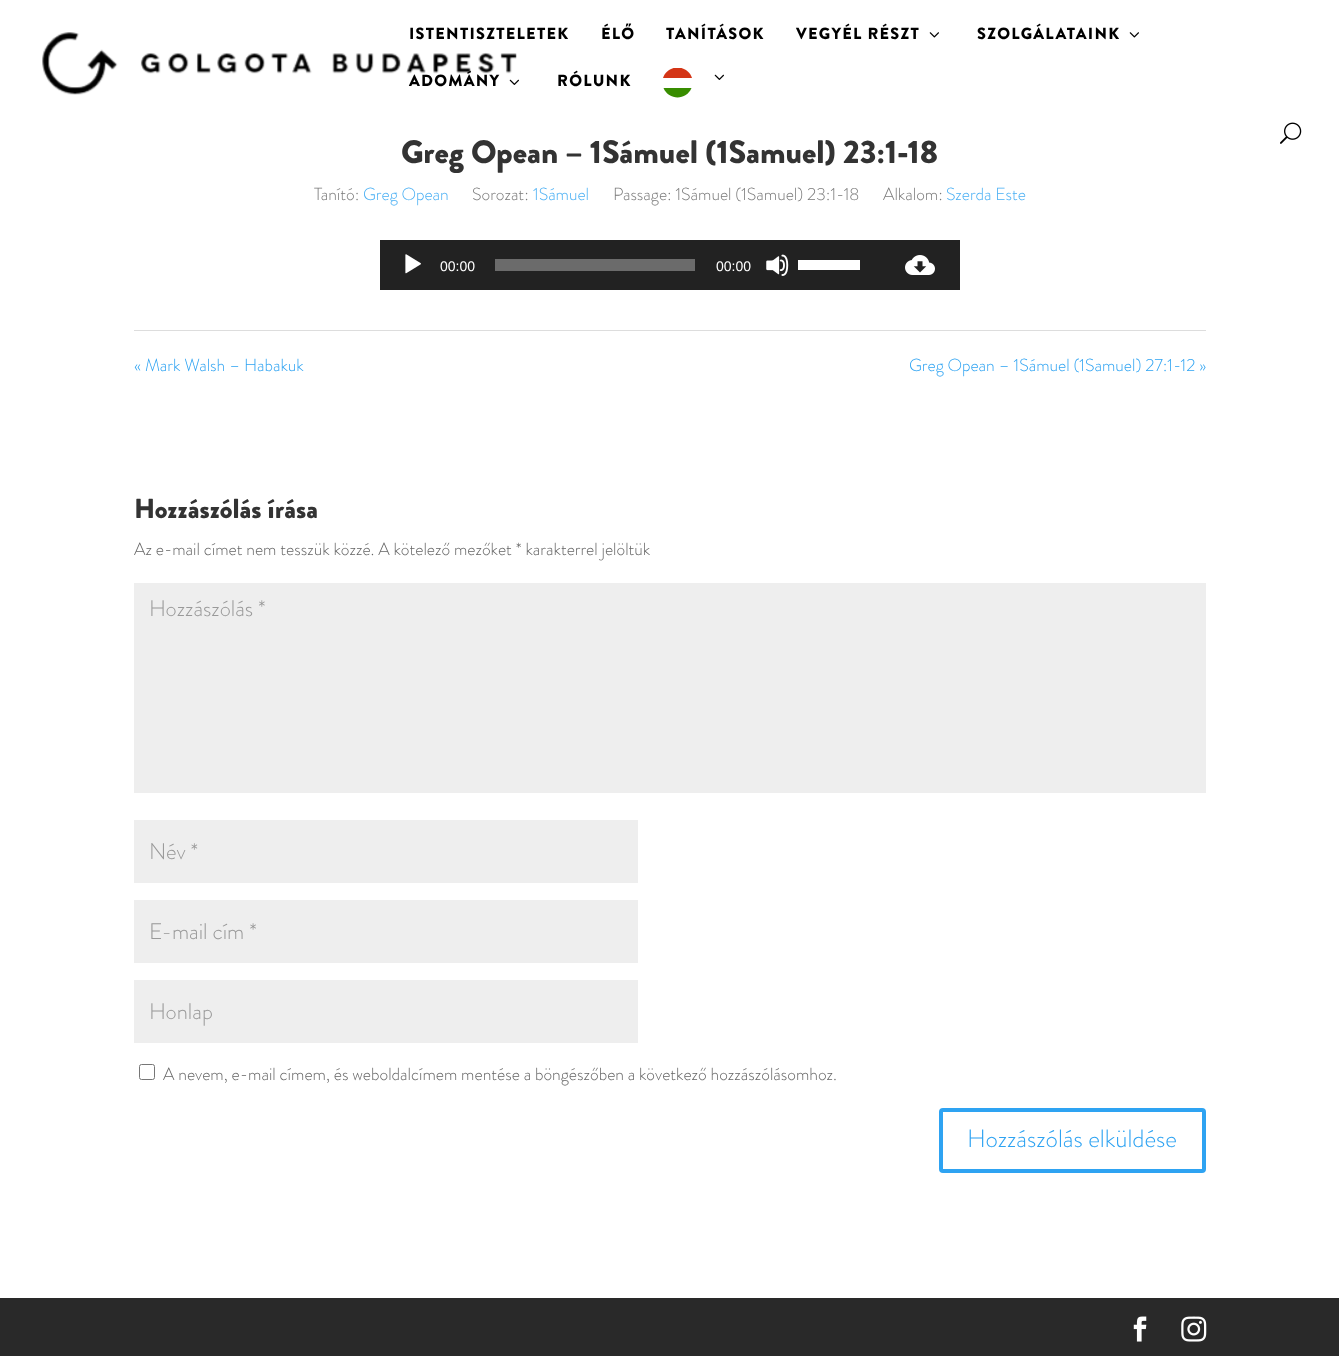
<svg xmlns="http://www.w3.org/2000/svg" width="1339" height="1356">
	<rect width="100%" height="100%" fill="#FFFFFF" />
	<image x="42" y="32" width="475" height="63" href="assets/img1.png" />
	<g font-family="Brandon Grotesque" font-size="16.25" font-weight="900" letter-spacing="1.25" fill="#000000">
		<text x="409" y="39">ISTENTISZTELETEK</text>
		<text x="601" y="39">ÉLŐ</text>
		<text x="666" y="39">TANÍTÁSOK</text>
		<text x="796" y="39">VEGYÉL RÉSZT</text>
	</g>
	<image x="929" y="32" width="10" height="6" href="assets/img2.png" />
	<text x="977" y="39" font-family="Brandon Grotesque" font-size="16.25" font-weight="900" letter-spacing="1.25" fill="#000000">SZOLGÁLATAINK</text>
	<image x="1129" y="32" width="10" height="6" href="assets/img2.png" />
	<text x="409" y="86" font-family="Brandon Grotesque" font-size="16.25" font-weight="900" letter-spacing="1.25" fill="#000000">ADOMÁNY</text>
	<image x="509" y="79" width="10" height="6" href="assets/img3.png" />
	<text x="557" y="86" font-family="Brandon Grotesque" font-size="16.25" font-weight="900" letter-spacing="1.25" fill="#000000">RÓLUNK</text>
	<path d="M691.5 88C686.5 100.5 668.5 100.5 663.5 88Z" fill="#388D00" />
	<path d="M663 78C664.5 73 668.5 69.5 673.5 68H681.5C686.5 69.5 690.5 73 692 78Z" fill="#D43516" />
	<image x="714" y="74" width="10" height="6" href="assets/img3.png" />
	<image x="1280" y="122" width="22" height="22" href="assets/img4.png" />
	<text x="401" y="163" font-family="Brandon Grotesque" font-size="32.5" font-weight="900" fill="#333333">Greg Opean – 1Sámuel (1Samuel) 23:1-18</text>
	<text x="314" y="200" font-family="Brandon Grotesque" font-size="17.5" font-weight="300" fill="#7A7A7A">Tanító:</text>
	<text x="363" y="200" font-family="Brandon Grotesque" font-size="17.5" font-weight="300" fill="#49AFF4">Greg Opean</text>
	<text x="472" y="200" font-family="Brandon Grotesque" font-size="17.5" font-weight="300" fill="#7A7A7A">Sorozat:</text>
	<text x="533" y="200" font-family="Brandon Grotesque" font-size="17.5" font-weight="300" fill="#49AFF4">1Sámuel</text>
	<g font-family="Brandon Grotesque" font-size="17.5" font-weight="300" fill="#7A7A7A">
		<text x="613" y="200">Passage: 1Sámuel (1Samuel) 23:1-18</text>
		<text x="883" y="200">Alkalom:</text>
	</g>
	<text x="946" y="200" font-family="Brandon Grotesque" font-size="17.5" font-weight="300" fill="#49AFF4">Szerda Este</text>
	<rect x="380" y="240" width="580" height="50" fill="#222222" />
	<image x="905" y="255" width="30" height="20" href="assets/img5.png" />
	<image x="405" y="254" width="16" height="20" href="assets/img6.png" />
	<text x="440" y="271" font-family="Liberation Sans" font-size="14" fill="#FFFFFF">00:00</text>
	<rect x="495" y="259" width="200" height="12" fill="#6B6B6B" />
	<text x="716" y="271" font-family="Liberation Sans" font-size="14" fill="#FFFFFF">00:00</text>
	<image x="766" y="254" width="23" height="22" href="assets/img7.png" />
	<rect x="798" y="260" width="62" height="10" fill="#FFFFFF" />
	<rect x="134" y="330" width="1072" height="1" fill="#DDDDDD" />
	<g font-family="Brandon Grotesque" font-size="17.5" font-weight="300" fill="#2EA3F2">
		<text x="134" y="371">« Mark Walsh – Habakuk</text>
		<text x="909" y="371">Greg Opean – 1Sámuel (1Samuel) 27:1-12 »</text>
	</g>
	<text x="134" y="518" font-family="Brandon Grotesque" font-size="27.5" font-weight="900" fill="#333333">Hozzászólás írása</text>
	<text x="134" y="555" font-family="Brandon Grotesque" font-size="17.5" font-weight="300" fill="#666666">Az e-mail címet nem tesszük közzé. A kötelező mezőket * karakterrel jelöltük</text>
	<rect x="134" y="583" width="1072" height="210" fill="#EEEEEE" />
	<text x="149" y="616" font-family="Brandon Grotesque" font-size="22.5" font-weight="300" fill="#999999">Hozzászólás *</text>
	<rect x="134" y="820" width="504" height="63" fill="#EEEEEE" />
	<text x="149" y="859" font-family="Brandon Grotesque" font-size="22.5" font-weight="300" fill="#999999">Név *</text>
	<rect x="134" y="900" width="504" height="63" fill="#EEEEEE" />
	<text x="149" y="939" font-family="Brandon Grotesque" font-size="22.5" font-weight="300" fill="#999999">E-mail cím *</text>
	<rect x="134" y="980" width="504" height="63" fill="#EEEEEE" />
	<text x="149" y="1019" font-family="Brandon Grotesque" font-size="22.5" font-weight="300" fill="#999999">Honlap</text>
	<rect x="139.5" y="1064.5" width="15" height="15" rx="2" fill="none" stroke="#767676" />
	<text x="163" y="1080" font-family="Brandon Grotesque" font-size="17.5" font-weight="300" fill="#666666">A nevem, e-mail címem, és weboldalcímem mentése a böngészőben a következő hozzászólásomhoz.</text>
	<rect x="941" y="1110" width="263" height="61" rx="2" fill="none" stroke="#2EA3F2" stroke-width="4" />
	<text x="967" y="1147" font-family="Brandon Grotesque" font-size="25" font-weight="300" fill="#2EA3F2">Hozzászólás elküldése</text>
	<rect x="0" y="1298" width="1339" height="58" fill="#292929" />
	<image x="1133" y="1316" width="14" height="26" href="assets/img8.png" />
	<image x="1181" y="1316" width="26" height="26" href="assets/img9.png" />
</svg>
